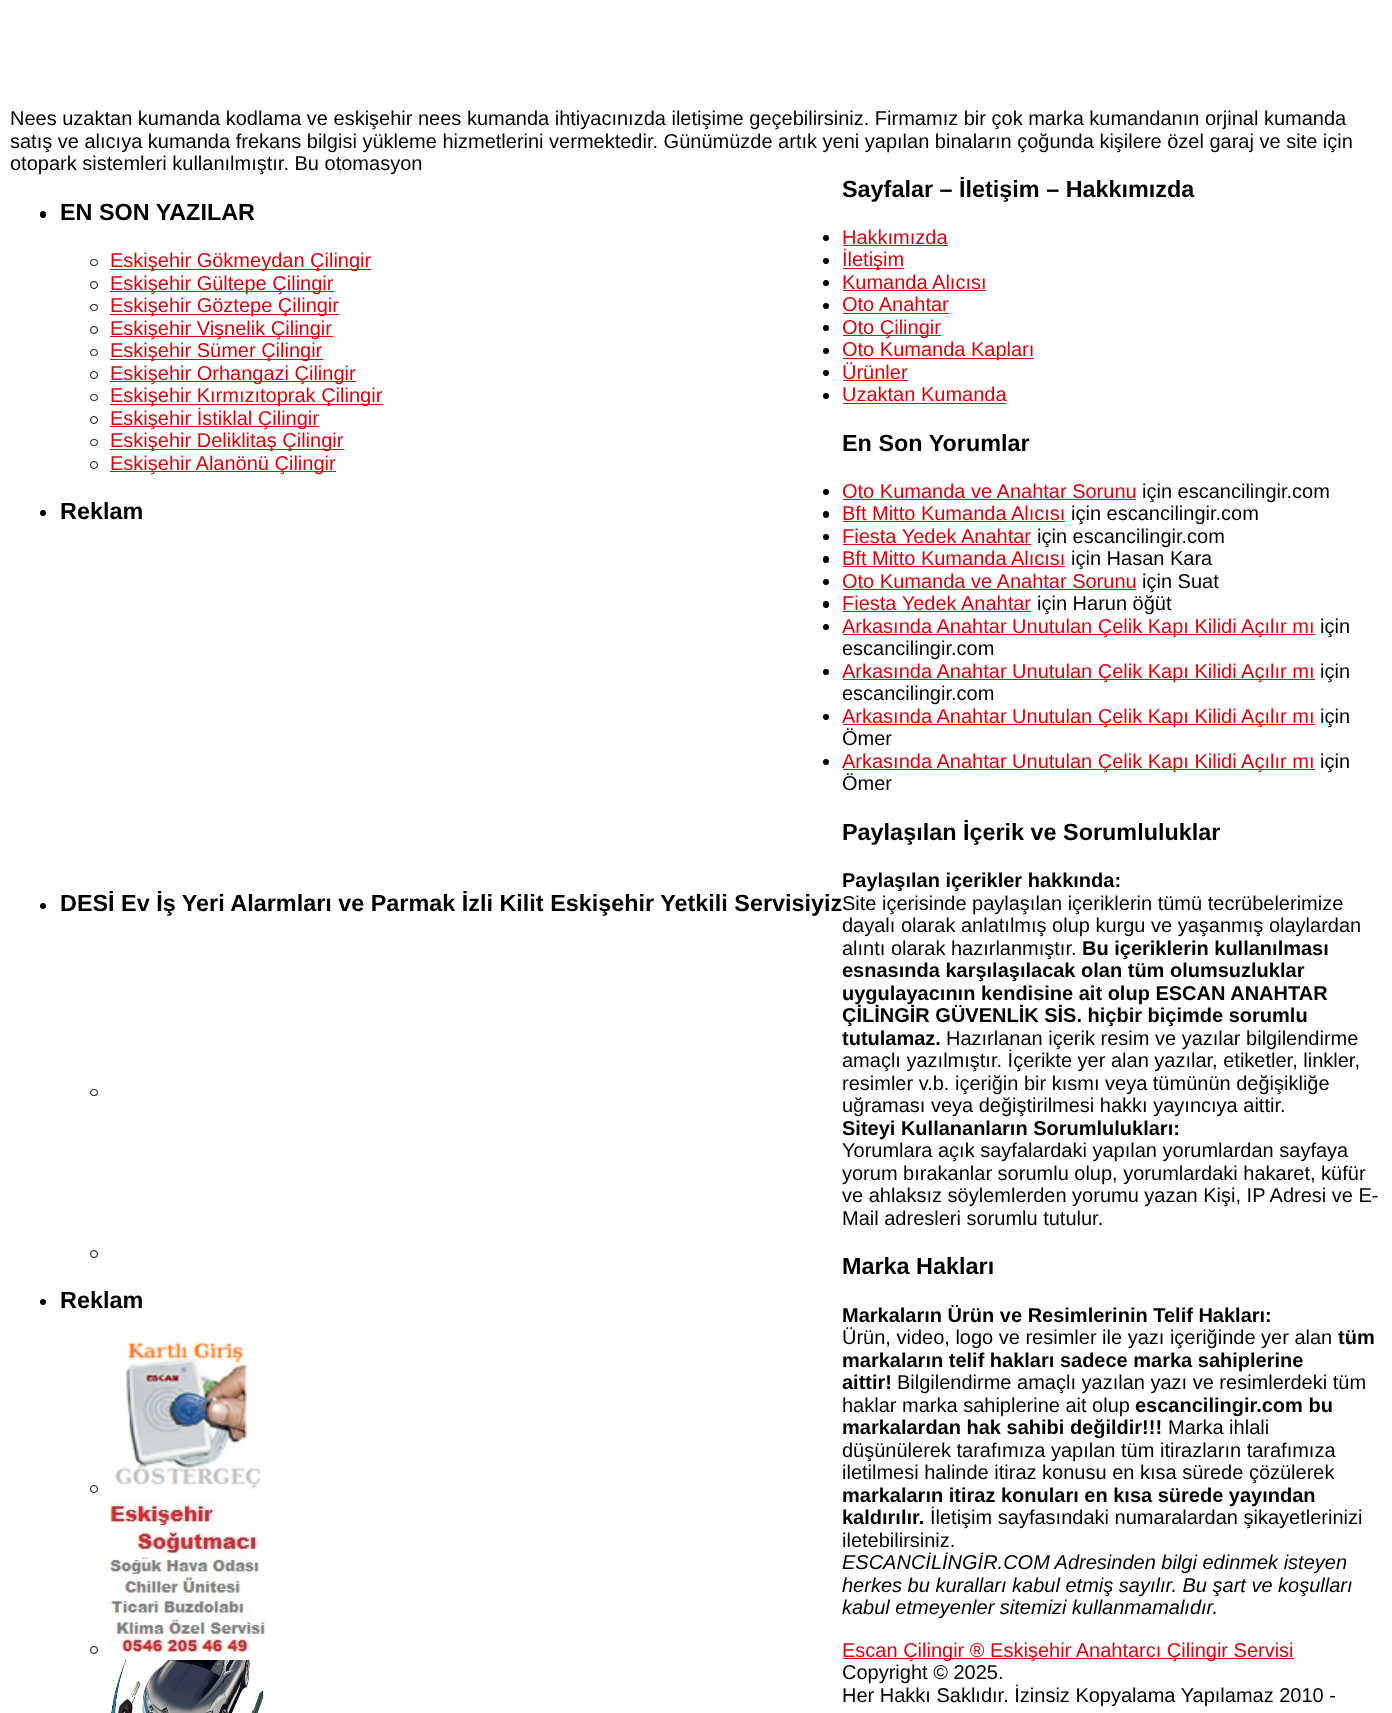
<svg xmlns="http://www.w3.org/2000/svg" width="1392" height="1713">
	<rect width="100%" height="100%" fill="#FFFFFF" />
	<g font-family="Liberation Sans" font-size="20" fill="#000000">
		<text x="10" y="125">Nees uzaktan kumanda kodlama ve eskişehir nees kumanda ihtiyacınızda iletişime geçebilirsiniz. Firmamız bir çok marka kumandanın orjinal kumanda</text>
		<text x="10" y="148">satış ve alıcıya kumanda frekans bilgisi yükleme hizmetlerini vermektedir. Günümüzde artık yeni yapılan binaların çoğunda kişilere özel garaj ve site için</text>
		<text x="10" y="170">otopark sistemleri kullanılmıştır. Bu otomasyon</text>
	</g>
	<rect x="40" y="211" width="6" height="7" rx="3" fill="#000000" />
	<text x="60" y="220" font-family="Liberation Sans" font-size="23.4" font-weight="700" fill="#000000">EN SON YAZILAR</text>
	<rect x="90.5" y="259.5" width="7" height="6" rx="3" fill="none" stroke="#000000" />
	<rect x="110" y="269" width="261" height="1" fill="#DB030D" />
	<text x="110" y="267" font-family="Liberation Sans" font-size="20" fill="#DB030D">Eskişehir Gökmeydan Çilingir</text>
	<circle cx="94" cy="285" r="3.5" fill="none" stroke="#000000" />
	<rect x="110" y="291" width="224" height="1" fill="#DB030D" />
	<text x="110" y="290" font-family="Liberation Sans" font-size="20" fill="#DB030D">Eskişehir Gültepe Çilingir</text>
	<rect x="90.5" y="304.5" width="7" height="6" rx="3" fill="none" stroke="#000000" />
	<rect x="110" y="314" width="229" height="1" fill="#DB030D" />
	<text x="110" y="312" font-family="Liberation Sans" font-size="20" fill="#DB030D">Eskişehir Göztepe Çilingir</text>
	<circle cx="94" cy="330" r="3.5" fill="none" stroke="#000000" />
	<rect x="110" y="336" width="223" height="1" fill="#DB030D" />
	<text x="110" y="335" font-family="Liberation Sans" font-size="20" fill="#DB030D">Eskişehir Vişnelik Çilingir</text>
	<rect x="90.5" y="349.5" width="7" height="6" rx="3" fill="none" stroke="#000000" />
	<rect x="110" y="359" width="213" height="1" fill="#DB030D" />
	<text x="110" y="357" font-family="Liberation Sans" font-size="20" fill="#DB030D">Eskişehir Sümer Çilingir</text>
	<circle cx="94" cy="375" r="3.5" fill="none" stroke="#000000" />
	<rect x="110" y="381" width="246" height="1" fill="#DB030D" />
	<text x="110" y="380" font-family="Liberation Sans" font-size="20" fill="#DB030D">Eskişehir Orhangazi Çilingir</text>
	<rect x="90.5" y="394.5" width="7" height="6" rx="3" fill="none" stroke="#000000" />
	<rect x="110" y="404" width="273" height="1" fill="#DB030D" />
	<text x="110" y="402" font-family="Liberation Sans" font-size="20" fill="#DB030D">Eskişehir Kırmızıtoprak Çilingir</text>
	<circle cx="94" cy="420" r="3.5" fill="none" stroke="#000000" />
	<rect x="110" y="426" width="209" height="1" fill="#DB030D" />
	<text x="110" y="425" font-family="Liberation Sans" font-size="20" fill="#DB030D">Eskişehir İstiklal Çilingir</text>
	<rect x="90.5" y="439.5" width="7" height="6" rx="3" fill="none" stroke="#000000" />
	<rect x="110" y="449" width="234" height="1" fill="#DB030D" />
	<text x="110" y="447" font-family="Liberation Sans" font-size="20" fill="#DB030D">Eskişehir Deliklitaş Çilingir</text>
	<circle cx="94" cy="465" r="3.5" fill="none" stroke="#000000" />
	<rect x="110" y="471" width="226" height="1" fill="#DB030D" />
	<text x="110" y="470" font-family="Liberation Sans" font-size="20" fill="#DB030D">Eskişehir Alanönü Çilingir</text>
	<circle cx="43" cy="513" r="3" fill="#000000" />
	<text x="60" y="519" font-family="Liberation Sans" font-size="23.4" font-weight="700" fill="#000000">Reklam</text>
	<circle cx="43" cy="906" r="3" fill="#000000" />
	<text x="60" y="911" font-family="Liberation Sans" font-size="23.4" font-weight="700" fill="#000000">DESİ Ev İş Yeri Alarmları ve Parmak İzli Kilit Eskişehir Yetkili Servisiyiz</text>
	<rect x="90.5" y="1089.5" width="7" height="6" rx="3" fill="none" stroke="#000000" />
	<circle cx="94" cy="1254" r="3.5" fill="none" stroke="#000000" />
	<circle cx="43" cy="1302" r="3" fill="#000000" />
	<text x="60" y="1308" font-family="Liberation Sans" font-size="23.4" font-weight="700" fill="#000000">Reklam</text>
	<circle cx="94" cy="1489" r="3.5" fill="none" stroke="#000000" />
	<image x="114" y="1342" width="148" height="147" href="assets/img1.png" />
	<circle cx="94" cy="1650" r="3.5" fill="none" stroke="#000000" />
	<image x="110" y="1499" width="156" height="156" href="assets/img2.png" />
	<image x="110" y="1660" width="156" height="53" href="assets/img3.png" />
	<text x="842" y="197" font-family="Liberation Sans" font-size="23.4" font-weight="700" fill="#000000">Sayfalar – İletişim – Hakkımızda</text>
	<circle cx="826" cy="238" r="3" fill="#000000" />
	<text x="842" y="244" font-family="Liberation Sans" font-size="20" fill="#DB030D">Hakkımızda</text>
	<rect x="843" y="245" width="105" height="1" fill="#DB030D" />
	<circle cx="826" cy="261" r="3" fill="#000000" />
	<rect x="843" y="268" width="61" height="1" fill="#DB030D" />
	<text x="842" y="266" font-family="Liberation Sans" font-size="20" fill="#DB030D">İletişim</text>
	<circle cx="826" cy="283" r="3" fill="#000000" />
	<text x="842" y="289" font-family="Liberation Sans" font-size="20" fill="#DB030D">Kumanda Alıcısı</text>
	<rect x="843" y="290" width="143" height="1" fill="#DB030D" />
	<circle cx="826" cy="306" r="3" fill="#000000" />
	<text x="842" y="311" font-family="Liberation Sans" font-size="20" fill="#DB030D">Oto Anahtar</text>
	<rect x="843" y="313" width="106" height="1" fill="#DB030D" />
	<circle cx="826" cy="328" r="3" fill="#000000" />
	<rect x="843" y="335" width="98" height="1" fill="#DB030D" />
	<text x="842" y="334" font-family="Liberation Sans" font-size="20" fill="#DB030D">Oto Çilingir</text>
	<circle cx="826" cy="351" r="3" fill="#000000" />
	<rect x="843" y="358" width="191" height="1" fill="#DB030D" />
	<text x="842" y="356" font-family="Liberation Sans" font-size="20" fill="#DB030D">Oto Kumanda Kapları</text>
	<circle cx="826" cy="373" r="3" fill="#000000" />
	<text x="842" y="379" font-family="Liberation Sans" font-size="20" fill="#DB030D">Ürünler</text>
	<rect x="843" y="380" width="65" height="1" fill="#DB030D" />
	<circle cx="826" cy="396" r="3" fill="#000000" />
	<text x="842" y="401" font-family="Liberation Sans" font-size="20" fill="#DB030D">Uzaktan Kumanda</text>
	<rect x="843" y="403" width="163" height="1" fill="#DB030D" />
	<text x="842" y="451" font-family="Liberation Sans" font-size="23.4" font-weight="700" fill="#000000">En Son Yorumlar</text>
	<circle cx="826" cy="492" r="3" fill="#000000" />
	<text x="842" y="498" font-family="Liberation Sans" font-size="20" fill="#DB030D">Oto Kumanda ve Anahtar Sorunu</text>
	<rect x="843" y="499" width="293" height="1" fill="#DB030D" />
	<text x="1142" y="498" font-family="Liberation Sans" font-size="20" fill="#000000">için escancilingir.com</text>
	<rect x="823" y="511" width="6" height="7" rx="3" fill="#000000" />
	<text x="842" y="520" font-family="Liberation Sans" font-size="20" fill="#DB030D">Bft Mitto Kumanda Alıcısı</text>
	<rect x="843" y="521" width="222" height="1" fill="#DB030D" />
	<text x="1071" y="520" font-family="Liberation Sans" font-size="20" fill="#000000">için escancilingir.com</text>
	<circle cx="826" cy="537" r="3" fill="#000000" />
	<text x="842" y="543" font-family="Liberation Sans" font-size="20" fill="#DB030D">Fiesta Yedek Anahtar</text>
	<rect x="843" y="544" width="188" height="1" fill="#DB030D" />
	<text x="1037" y="543" font-family="Liberation Sans" font-size="20" fill="#000000">için escancilingir.com</text>
	<rect x="823" y="556" width="6" height="7" rx="3" fill="#000000" />
	<text x="842" y="565" font-family="Liberation Sans" font-size="20" fill="#DB030D">Bft Mitto Kumanda Alıcısı</text>
	<rect x="843" y="566" width="222" height="1" fill="#DB030D" />
	<text x="1071" y="565" font-family="Liberation Sans" font-size="20" fill="#000000">için Hasan Kara</text>
	<circle cx="826" cy="582" r="3" fill="#000000" />
	<text x="842" y="588" font-family="Liberation Sans" font-size="20" fill="#DB030D">Oto Kumanda ve Anahtar Sorunu</text>
	<rect x="843" y="589" width="293" height="1" fill="#DB030D" />
	<text x="1142" y="588" font-family="Liberation Sans" font-size="20" fill="#000000">için Suat</text>
	<rect x="823" y="601" width="6" height="7" rx="3" fill="#000000" />
	<text x="842" y="610" font-family="Liberation Sans" font-size="20" fill="#DB030D">Fiesta Yedek Anahtar</text>
	<rect x="843" y="611" width="188" height="1" fill="#DB030D" />
	<text x="1037" y="610" font-family="Liberation Sans" font-size="20" fill="#000000">için Harun öğüt</text>
	<circle cx="826" cy="627" r="3" fill="#000000" />
	<rect x="843" y="634" width="472" height="1" fill="#DB030D" />
	<text x="842" y="633" font-family="Liberation Sans" font-size="20" fill="#DB030D">Arkasında Anahtar Unutulan Çelik Kapı Kilidi Açılır mı</text>
	<g font-family="Liberation Sans" font-size="20" fill="#000000">
		<text x="1320" y="633">için</text>
		<text x="842" y="655">escancilingir.com</text>
	</g>
	<circle cx="826" cy="672" r="3" fill="#000000" />
	<rect x="843" y="679" width="472" height="1" fill="#DB030D" />
	<text x="842" y="678" font-family="Liberation Sans" font-size="20" fill="#DB030D">Arkasında Anahtar Unutulan Çelik Kapı Kilidi Açılır mı</text>
	<g font-family="Liberation Sans" font-size="20" fill="#000000">
		<text x="1320" y="678">için</text>
		<text x="842" y="700">escancilingir.com</text>
	</g>
	<circle cx="826" cy="717" r="3" fill="#000000" />
	<rect x="843" y="724" width="472" height="1" fill="#DB030D" />
	<text x="842" y="723" font-family="Liberation Sans" font-size="20" fill="#DB030D">Arkasında Anahtar Unutulan Çelik Kapı Kilidi Açılır mı</text>
	<g font-family="Liberation Sans" font-size="20" fill="#000000">
		<text x="1320" y="723">için</text>
		<text x="842" y="745">Ömer</text>
	</g>
	<circle cx="826" cy="762" r="3" fill="#000000" />
	<rect x="843" y="769" width="472" height="1" fill="#DB030D" />
	<text x="842" y="768" font-family="Liberation Sans" font-size="20" fill="#DB030D">Arkasında Anahtar Unutulan Çelik Kapı Kilidi Açılır mı</text>
	<g font-family="Liberation Sans" font-size="20" fill="#000000">
		<text x="1320" y="768">için</text>
		<text x="842" y="790">Ömer</text>
	</g>
	<text x="842" y="840" font-family="Liberation Sans" font-size="23.4" font-weight="700" fill="#000000">Paylaşılan İçerik ve Sorumluluklar</text>
	<text x="842" y="887" font-family="Liberation Sans" font-size="20" font-weight="700" fill="#000000">Paylaşılan içerikler hakkında:</text>
	<g font-family="Liberation Sans" font-size="20" fill="#000000">
		<text x="842" y="910">Site içerisinde paylaşılan içeriklerin tümü tecrübelerimize</text>
		<text x="842" y="932">dayalı olarak anlatılmış olup kurgu ve yaşanmış olaylardan</text>
		<text x="842" y="955">alıntı olarak hazırlanmıştır.</text>
	</g>
	<g font-family="Liberation Sans" font-size="20" font-weight="700" fill="#000000">
		<text x="1082" y="955">Bu içeriklerin kullanılması</text>
		<text x="842" y="977">esnasında karşılaşılacak olan tüm olumsuzluklar</text>
		<text x="842" y="1000">uygulayacının kendisine ait olup ESCAN ANAHTAR</text>
		<text x="842" y="1022">ÇİLİNGİR GÜVENLİK SİS. hiçbir biçimde sorumlu</text>
		<text x="842" y="1045">tutulamaz.</text>
	</g>
	<g font-family="Liberation Sans" font-size="20" fill="#000000">
		<text x="946" y="1045">Hazırlanan içerik resim ve yazılar bilgilendirme</text>
		<text x="842" y="1067">amaçlı yazılmıştır. İçerikte yer alan yazılar, etiketler, linkler,</text>
		<text x="842" y="1090">resimler v.b. içeriğin bir kısmı veya tümünün değişikliğe</text>
		<text x="842" y="1112">uğraması veya değiştirilmesi hakkı yayıncıya aittir.</text>
	</g>
	<text x="842" y="1135" font-family="Liberation Sans" font-size="20" font-weight="700" fill="#000000">Siteyi Kullananların Sorumlulukları:</text>
	<g font-family="Liberation Sans" font-size="20" fill="#000000">
		<text x="842" y="1157">Yorumlara açık sayfalardaki yapılan yorumlardan sayfaya</text>
		<text x="842" y="1180">yorum bırakanlar sorumlu olup, yorumlardaki hakaret, küfür</text>
		<text x="842" y="1202">ve ahlaksız söylemlerden yorumu yazan Kişi, IP Adresi ve E-</text>
		<text x="842" y="1225">Mail adresleri sorumlu tutulur.</text>
	</g>
	<text x="842" y="1274" font-family="Liberation Sans" font-size="23.4" font-weight="700" fill="#000000">Marka Hakları</text>
	<text x="842" y="1322" font-family="Liberation Sans" font-size="20" font-weight="700" fill="#000000">Markaların Ürün ve Resimlerinin Telif Hakları:</text>
	<text x="842" y="1344" font-family="Liberation Sans" font-size="20" fill="#000000">Ürün, video, logo ve resimler ile yazı içeriğinde yer alan</text>
	<g font-family="Liberation Sans" font-size="20" font-weight="700" fill="#000000">
		<text x="1338" y="1344">tüm</text>
		<text x="842" y="1367">markaların telif hakları sadece marka sahiplerine</text>
		<text x="842" y="1389">aittir!</text>
	</g>
	<g font-family="Liberation Sans" font-size="20" fill="#000000">
		<text x="897" y="1389">Bilgilendirme amaçlı yazılan yazı ve resimlerdeki tüm</text>
		<text x="842" y="1412">haklar marka sahiplerine ait olup</text>
	</g>
	<g font-family="Liberation Sans" font-size="20" font-weight="700" fill="#000000">
		<text x="1135" y="1412">escancilingir.com bu</text>
		<text x="842" y="1434">markalardan hak sahibi değildir!!!</text>
	</g>
	<g font-family="Liberation Sans" font-size="20" fill="#000000">
		<text x="1168" y="1434">Marka ihlali</text>
		<text x="842" y="1457">düşünülerek tarafımıza yapılan tüm itirazların tarafımıza</text>
		<text x="842" y="1479">iletilmesi halinde itiraz konusu en kısa sürede çözülerek</text>
	</g>
	<g font-family="Liberation Sans" font-size="20" font-weight="700" fill="#000000">
		<text x="842" y="1502">markaların itiraz konuları en kısa sürede yayından</text>
		<text x="842" y="1524">kaldırılır.</text>
	</g>
	<g font-family="Liberation Sans" font-size="20" fill="#000000">
		<text x="930" y="1524">İletişim sayfasındaki numaralardan şikayetlerinizi</text>
		<text x="842" y="1547">iletebilirsiniz.</text>
	</g>
	<g font-family="Liberation Sans" font-size="20" font-style="italic" fill="#000000">
		<text x="842" y="1569">ESCANCİLİNGİR.COM Adresinden bilgi edinmek isteyen</text>
		<text x="842" y="1592">herkes bu kuralları kabul etmiş sayılır. Bu şart ve koşulları</text>
		<text x="842" y="1614">kabul etmeyenler sitemizi kullanmamalıdır.</text>
	</g>
	<rect x="843" y="1658" width="451" height="1" fill="#DB030D" />
	<text x="842" y="1657" font-family="Liberation Sans" font-size="20" fill="#DB030D">Escan Çilingir ® Eskişehir Anahtarcı Çilingir Servisi</text>
	<g font-family="Liberation Sans" font-size="20" fill="#000000">
		<text x="842" y="1679">Copyright © 2025.</text>
		<text x="842" y="1702">Her Hakkı Saklıdır. İzinsiz Kopyalama Yapılamaz 2010 -</text>
	</g>
</svg>
